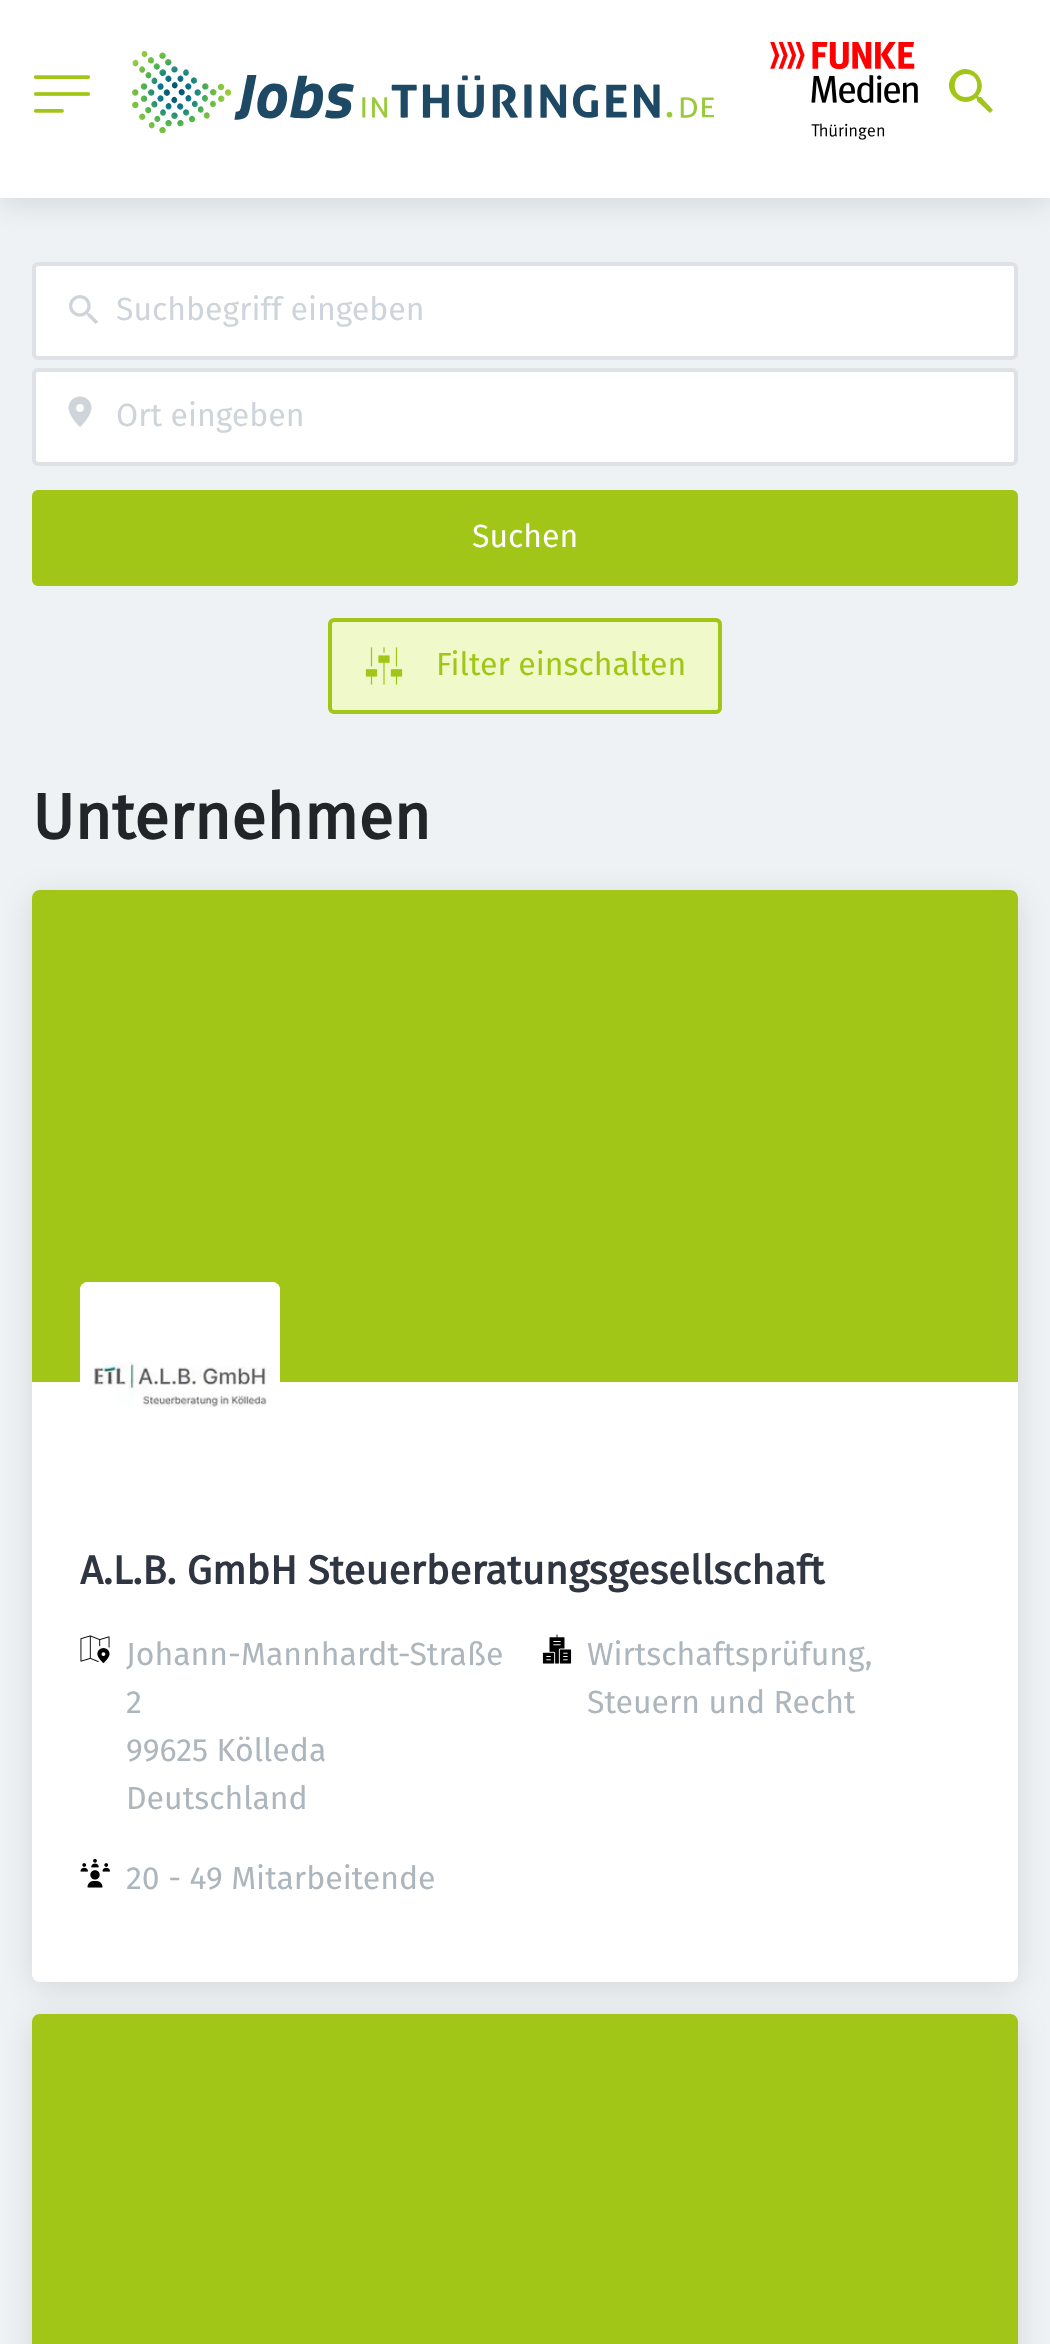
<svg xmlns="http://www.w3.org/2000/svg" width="1050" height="2344">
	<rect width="100%" height="100%" fill="#EFF2F4" />
	<rect x="0" y="6" width="1050" height="198" fill="#000000" fill-opacity="0.1" filter="blur(15px)" />
	<rect x="0" y="0" width="1050" height="198" fill="#FFFFFF" />
	<image x="33" y="75" width="58" height="38" href="assets/img1.png" />
	<image x="132" y="51" width="582" height="82" href="assets/img2.png" />
	<image x="770" y="42" width="148" height="98" href="assets/img3.png" />
	<path d="M981 97H979L978 96C991 81 969 59 954 74C939 89 961 111 976 98L977 99V101L990 113L993 110ZM966 97C951 97 951 74 966 74C981 74 981 97 966 97Z" fill="#A2C617" />
	<rect x="34" y="264" width="982" height="94" rx="4" fill="#FFFFFF" stroke="#DEE2E6" stroke-width="4" />
	<image x="69" y="295" width="29" height="29" href="assets/img4.png" />
	<text x="116" y="320" font-family="Fira Sans" font-size="32" fill="#CED4DA">Suchbegriff eingeben</text>
	<rect x="34" y="370" width="982" height="94" rx="4" fill="#FFFFFF" stroke="#DEE2E6" stroke-width="4" />
	<image x="68" y="396" width="24" height="31" href="assets/img5.png" />
	<text x="116" y="426" font-family="Fira Sans" font-size="32" fill="#CED4DA">Ort eingeben</text>
	<rect x="34" y="492" width="982" height="92" rx="4" fill="#A2C617" stroke="#A2C617" stroke-width="4" />
	<text x="472" y="547" font-family="Fira Sans" font-size="32" fill="#FFFFFF">Suchen</text>
	<rect x="330" y="620" width="390" height="92" rx="4" fill="#EFF9CA" stroke="#A2C617" stroke-width="4" />
	<image x="365" y="647" width="38" height="38" href="assets/img6.png" />
	<text x="436" y="675" font-family="Fira Sans" font-size="32" fill="#A2C617">Filter einschalten</text>
	<text x="32" y="839" font-family="Fira Sans" font-size="64" font-weight="700" fill="#212529">Unternehmen</text>
	<rect x="32" y="896" width="986" height="1092" rx="8" fill="#000000" fill-opacity="0.1" filter="blur(15px)" />
	<rect x="32" y="890" width="986" height="1092" rx="8" fill="#FFFFFF" />
	<path d="M40 890H1010C1014.5 890 1018 893.5 1018 898V1382H32V898C32 893.5 35.5 890 40 890Z" fill="#A2C617" />
	<rect x="80" y="1282" width="200" height="200" rx="8" fill="#FFFFFF" />
	<image x="80" y="1282" width="200" height="125" href="assets/img7.png" />
	<text x="80" y="1584" font-family="Fira Sans" font-size="40" font-weight="700" fill="#2F3541">A.L.B. GmbH Steuerberatungsgesellschaft</text>
	<image x="80" y="1635" width="30" height="28" href="assets/img8.png" />
	<g font-family="Fira Sans" font-size="32" fill="#ADB5BD">
		<text x="126" y="1665">Johann-Mannhardt-Straße</text>
		<text x="126" y="1713">2</text>
		<text x="126" y="1761">99625 Kölleda</text>
		<text x="126" y="1809">Deutschland</text>
	</g>
	<image x="542" y="1634" width="30" height="30" href="assets/img9.png" />
	<g font-family="Fira Sans" font-size="32" fill="#ADB5BD">
		<text x="587" y="1665">Wirtschaftsprüfung,</text>
		<text x="587" y="1713">Steuern und Recht</text>
	</g>
	<image x="80" y="1858" width="30" height="30" href="assets/img10.png" />
	<text x="126" y="1889" font-family="Fira Sans" font-size="32" fill="#ADB5BD">20 - 49 Mitarbeitende</text>
	<rect x="32" y="2020" width="986" height="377" rx="8" fill="#000000" fill-opacity="0.1" filter="blur(15px)" />
	<path d="M40 2014H1010C1014.5 2014 1018 2017.5 1018 2022V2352H32V2022C32 2017.5 35.5 2014 40 2014Z" fill="#A2C617" />
</svg>
